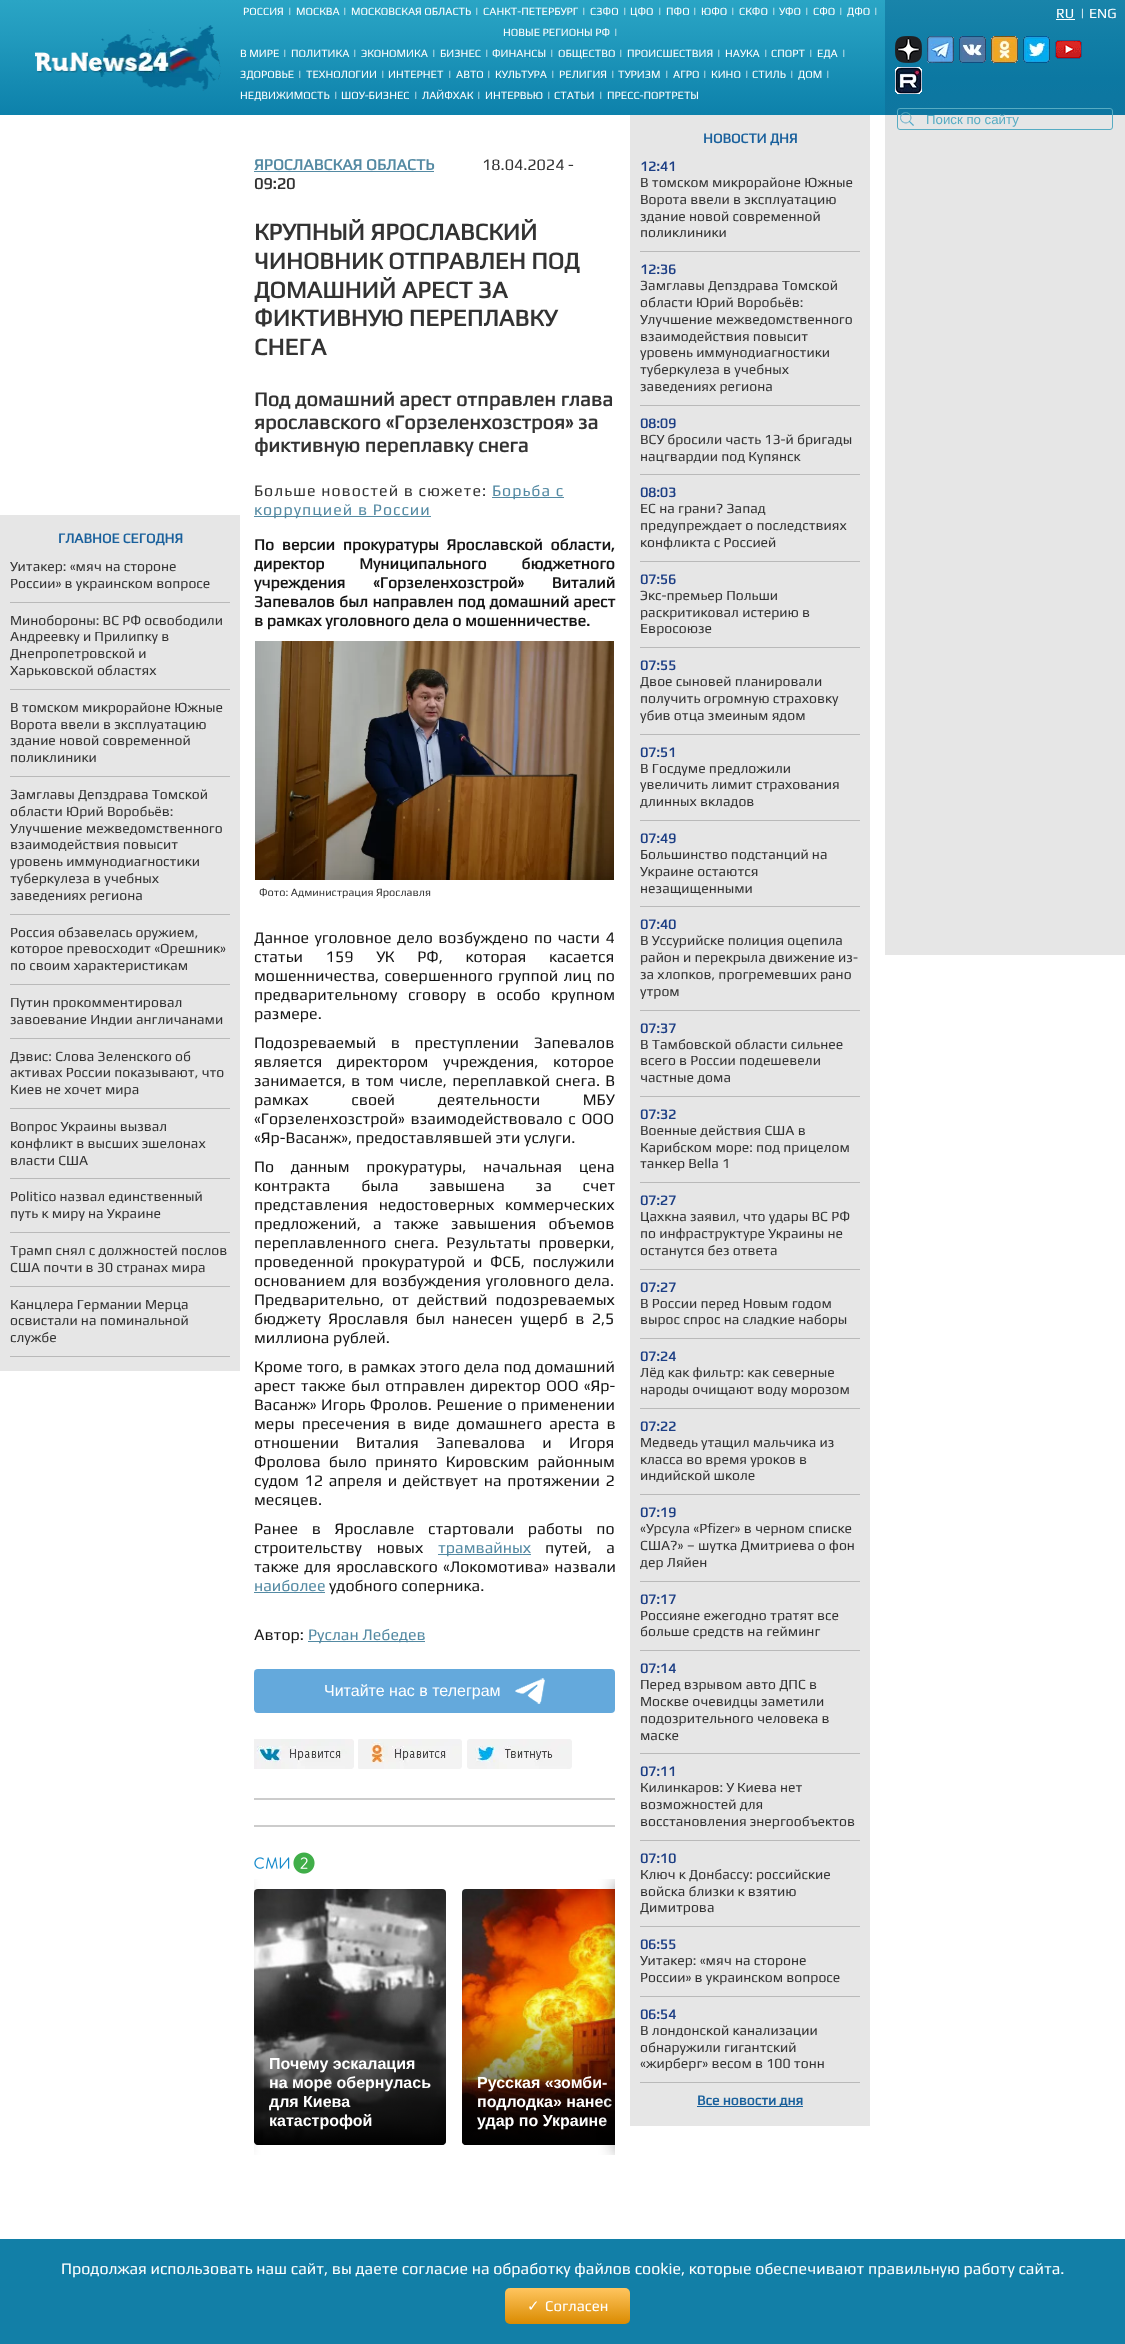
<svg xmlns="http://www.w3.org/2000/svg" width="1125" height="2344">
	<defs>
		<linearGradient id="g1" gradientUnits="userSpaceOnUse" x1="563" y1="0" x2="563" y2="115"><stop offset="0" stop-color="#2AA5C5" /><stop offset="0.31" stop-color="#229BBE" /><stop offset="0.72" stop-color="#158BB2" /><stop offset="1" stop-color="#0D81AB" /></linearGradient>
		<linearGradient id="g2" gradientUnits="userSpaceOnUse" x1="1005" y1="0" x2="1005" y2="115"><stop offset="0" stop-color="#1984AA" /><stop offset="0.35" stop-color="#117EA6" /><stop offset="0.68" stop-color="#0C78A2" /><stop offset="1" stop-color="#0E76A0" /></linearGradient>
		<linearGradient id="g3" gradientUnits="userSpaceOnUse" x1="350" y1="2145" x2="350" y2="1994"><stop offset="0" stop-color="#000000" /><stop offset="1" stop-color="#000000" stop-opacity="0" /></linearGradient>
		<clipPath id="clip1"><rect x="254" y="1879" width="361" height="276" /></clipPath>
		<linearGradient id="g4" gradientUnits="userSpaceOnUse" x1="558" y1="2145" x2="558" y2="2013"><stop offset="0" stop-color="#000000" /><stop offset="1" stop-color="#000000" stop-opacity="0" /></linearGradient>
		<linearGradient id="g5" gradientUnits="userSpaceOnUse" x1="568" y1="2288" x2="568" y2="2324"><stop offset="0" stop-color="#FFC55F" /><stop offset="1" stop-color="#DA8B00" /></linearGradient>
	</defs>
	<rect width="100%" height="100%" fill="#FFFFFF" />
	<rect x="0" y="0" width="885" height="115" fill="url(#g1)" />
	<image x="35" y="25" width="186" height="66" href="assets/img1.png" />
	<g font-family="Play" font-size="11" fill="#FFFFFF">
		<text x="243" y="15">РОССИЯ</text>
		<text x="288" y="15">|</text>
		<text x="296" y="15">МОСКВА</text>
		<text x="343" y="15">|</text>
		<text x="351" y="15">МОСКОВСКАЯ ОБЛАСТЬ</text>
		<text x="475" y="15">|</text>
		<text x="483" y="15">САНКТ-ПЕТЕРБУРГ</text>
		<text x="582" y="15">|</text>
		<text x="590" y="15">СЗФО</text>
		<text x="623" y="15">|</text>
		<text x="630" y="15">ЦФО</text>
		<text x="658" y="15">|</text>
		<text x="666" y="15">ПФО</text>
		<text x="693" y="15">|</text>
		<text x="701" y="15">ЮФО</text>
		<text x="731" y="15">|</text>
		<text x="739" y="15">СКФО</text>
		<text x="772" y="15">|</text>
		<text x="779" y="15">УФО</text>
		<text x="805" y="15">|</text>
		<text x="813" y="15">СФО</text>
		<text x="839" y="15">|</text>
		<text x="847" y="15">ДФО</text>
		<text x="874" y="15">|</text>
		<text x="503" y="36">НОВЫЕ РЕГИОНЫ РФ</text>
		<text x="614" y="36">|</text>
		<text x="240" y="57">В МИРЕ</text>
		<text x="283" y="57">|</text>
		<text x="291" y="57">ПОЛИТИКА</text>
		<text x="353" y="57">|</text>
		<text x="361" y="57">ЭКОНОМИКА</text>
		<text x="432" y="57">|</text>
		<text x="440" y="57">БИЗНЕС</text>
		<text x="485" y="57">|</text>
		<text x="492" y="57">ФИНАНСЫ</text>
		<text x="550" y="57">|</text>
		<text x="558" y="57">ОБЩЕСТВО</text>
		<text x="619" y="57">|</text>
		<text x="627" y="57">ПРОИСШЕСТВИЯ</text>
		<text x="717" y="57">|</text>
		<text x="725" y="57">НАУКА</text>
		<text x="764" y="57">|</text>
		<text x="771" y="57">СПОРТ</text>
		<text x="809" y="57">|</text>
		<text x="817" y="57">ЕДА</text>
		<text x="842" y="57">|</text>
		<text x="240" y="78">ЗДОРОВЬЕ</text>
		<text x="298" y="78">|</text>
		<text x="306" y="78">ТЕХНОЛОГИИ</text>
		<text x="381" y="78">|</text>
		<text x="388" y="78">ИНТЕРНЕТ</text>
		<text x="448" y="78">|</text>
		<text x="456" y="78">АВТО</text>
		<text x="487" y="78">|</text>
		<text x="495" y="78">КУЛЬТУРА</text>
		<text x="551" y="78">|</text>
		<text x="559" y="78">РЕЛИГИЯ</text>
		<text x="611" y="78">|</text>
		<text x="618" y="78">ТУРИЗМ</text>
		<text x="665" y="78">|</text>
		<text x="673" y="78">АГРО</text>
		<text x="703" y="78">|</text>
		<text x="711" y="78">КИНО</text>
		<text x="745" y="78">|</text>
		<text x="752" y="78">СТИЛЬ</text>
		<text x="790" y="78">|</text>
		<text x="798" y="78">ДОМ</text>
		<text x="826" y="78">|</text>
		<text x="240" y="99">НЕДВИЖИМОСТЬ</text>
		<text x="334" y="99">|</text>
		<text x="341" y="99">ШОУ-БИЗНЕС</text>
		<text x="414" y="99">|</text>
		<text x="422" y="99">ЛАЙФХАК</text>
		<text x="477" y="99">|</text>
		<text x="485" y="99">ИНТЕРВЬЮ</text>
		<text x="547" y="99">|</text>
		<text x="554" y="99">СТАТЬИ</text>
		<text x="599" y="99">|</text>
		<text x="607" y="99">ПРЕСС-ПОРТРЕТЫ</text>
	</g>
	<rect x="885" y="0" width="240" height="115" fill="url(#g2)" />
	<text x="1056" y="18" font-family="Play" font-size="14" fill="#FFFFFF">RU</text>
	<rect x="1056" y="19" width="19" height="1" fill="#FFFFFF" />
	<g font-family="Play" font-size="14" fill="#FFFFFF">
		<text x="1080" y="18">|</text>
		<text x="1089" y="18">ENG</text>
	</g>
	<image x="895" y="36" width="27" height="27" href="assets/img2.png" />
	<image x="927" y="36" width="27" height="27" href="assets/img3.png" />
	<image x="959" y="36" width="27" height="27" href="assets/img4.png" />
	<image x="991" y="36" width="27" height="27" href="assets/img5.png" />
	<image x="1023" y="36" width="27" height="27" href="assets/img6.png" />
	<image x="1055" y="40" width="27" height="19" href="assets/img7.png" />
	<image x="895" y="67" width="27" height="27" href="assets/img8.png" />
	<rect x="885" y="115" width="240" height="840" fill="#E6E6E6" />
	<rect x="897.5" y="108.5" width="215" height="21" rx="2.5" fill="none" stroke="#57ACC3" />
	<image x="900" y="112" width="14" height="14" href="assets/img9.png" />
	<text x="926" y="124" font-family="Liberation Sans" font-size="13.25" fill="#57ACC3">Поиск по сайту</text>
	<rect x="0" y="515" width="240" height="856" fill="#E6E6E6" />
	<text x="58" y="543" font-family="Play" font-size="14" font-weight="700" fill="#19609C">ГЛАВНОЕ СЕГОДНЯ</text>
	<g font-family="Play" font-size="14" fill="#333333">
		<text x="10" y="571">Уитакер: «мяч на стороне</text>
		<text x="10" y="588">России» в украинском вопросе</text>
	</g>
	<rect x="10" y="602" width="220" height="1" fill="#B9B9B9" />
	<g font-family="Play" font-size="14" fill="#333333">
		<text x="10" y="625">Минобороны: ВС РФ освободили</text>
		<text x="10" y="641">Андреевку и Прилипку в</text>
		<text x="10" y="658">Днепропетровской и</text>
		<text x="10" y="675">Харьковской областях</text>
	</g>
	<rect x="10" y="689" width="220" height="1" fill="#B9B9B9" />
	<g font-family="Play" font-size="14" fill="#333333">
		<text x="10" y="712">В томском микрорайоне Южные</text>
		<text x="10" y="729">Ворота ввели в эксплуатацию</text>
		<text x="10" y="745">здание новой современной</text>
		<text x="10" y="762">поликлиники</text>
	</g>
	<rect x="10" y="776" width="220" height="1" fill="#B9B9B9" />
	<g font-family="Play" font-size="14" fill="#333333">
		<text x="10" y="799">Замглавы Депздрава Томской</text>
		<text x="10" y="816">области Юрий Воробьёв:</text>
		<text x="10" y="833">Улучшение межведомственного</text>
		<text x="10" y="849">взаимодействия повысит</text>
		<text x="10" y="866">уровень иммунодиагностики</text>
		<text x="10" y="883">туберкулеза в учебных</text>
		<text x="10" y="900">заведениях региона</text>
	</g>
	<rect x="10" y="914" width="220" height="1" fill="#B9B9B9" />
	<g font-family="Play" font-size="14" fill="#333333">
		<text x="10" y="937">Россия обзавелась оружием,</text>
		<text x="10" y="953">которое превосходит «Орешник»</text>
		<text x="10" y="970">по своим характеристикам</text>
	</g>
	<rect x="10" y="984" width="220" height="1" fill="#B9B9B9" />
	<g font-family="Play" font-size="14" fill="#333333">
		<text x="10" y="1007">Путин прокомментировал</text>
		<text x="10" y="1024">завоевание Индии англичанами</text>
	</g>
	<rect x="10" y="1038" width="220" height="1" fill="#B9B9B9" />
	<g font-family="Play" font-size="14" fill="#333333">
		<text x="10" y="1061">Дэвис: Слова Зеленского об</text>
		<text x="10" y="1077">активах России показывают, что</text>
		<text x="10" y="1094">Киев не хочет мира</text>
	</g>
	<rect x="10" y="1108" width="220" height="1" fill="#B9B9B9" />
	<g font-family="Play" font-size="14" fill="#333333">
		<text x="10" y="1131">Вопрос Украины вызвал</text>
		<text x="10" y="1148">конфликт в высших эшелонах</text>
		<text x="10" y="1165">власти США</text>
	</g>
	<rect x="10" y="1178" width="220" height="1" fill="#B9B9B9" />
	<g font-family="Play" font-size="14" fill="#333333">
		<text x="10" y="1201">Politico назвал единственный</text>
		<text x="10" y="1218">путь к миру на Украине</text>
	</g>
	<rect x="10" y="1232" width="220" height="1" fill="#B9B9B9" />
	<g font-family="Play" font-size="14" fill="#333333">
		<text x="10" y="1255">Трамп снял с должностей послов</text>
		<text x="10" y="1272">США почти в 30 странах мира</text>
	</g>
	<rect x="10" y="1286" width="220" height="1" fill="#B9B9B9" />
	<g font-family="Play" font-size="14" fill="#333333">
		<text x="10" y="1309">Канцлера Германии Мерца</text>
		<text x="10" y="1325">освистали на поминальной</text>
		<text x="10" y="1342">службе</text>
	</g>
	<rect x="10" y="1356" width="220" height="1" fill="#B9B9B9" />
	<rect x="254" y="1798" width="361" height="2" fill="#CCCCCC" />
	<text x="254" y="170" font-family="Play" font-size="16" font-weight="700" fill="#548AA3">ЯРОСЛАВСКАЯ ОБЛАСТЬ</text>
	<rect x="254" y="171" width="180" height="1" fill="#548AA3" />
	<text x="482" y="170" font-family="Play" font-size="16" fill="#333333">18.04.2024 -</text>
	<text x="254" y="189" font-family="Play" font-size="16" font-weight="700" fill="#333333">09:20</text>
	<g font-family="Play" font-size="24" font-weight="700" fill="#333333">
		<text x="254" y="240">КРУПНЫЙ ЯРОСЛАВСКИЙ</text>
		<text x="254" y="269">ЧИНОВНИК ОТПРАВЛЕН ПОД</text>
		<text x="254" y="298">ДОМАШНИЙ АРЕСТ ЗА</text>
		<text x="254" y="326">ФИКТИВНУЮ ПЕРЕПЛАВКУ</text>
		<text x="254" y="355">СНЕГА</text>
	</g>
	<g font-family="Play" font-size="20" font-weight="700" fill="#333333">
		<text x="254" y="406">Под домашний арест отправлен глава</text>
		<text x="254" y="429">ярославского «Горзеленхозстроя» за</text>
		<text x="254" y="452">фиктивную переплавку снега</text>
	</g>
	<text x="254" y="496" font-family="Play" font-size="16" letter-spacing="1" fill="#333333">Больше новостей в сюжете:</text>
	<rect x="492" y="497" width="72" height="1" fill="#548AA3" />
	<text x="492" y="496" font-family="Play" font-size="16" letter-spacing="1" fill="#548AA3">Борьба с</text>
	<rect x="254" y="516" width="177" height="1" fill="#548AA3" />
	<text x="254" y="515" font-family="Play" font-size="16" letter-spacing="1" fill="#548AA3">коррупцией в России</text>
	<g font-family="Play" font-size="16" font-weight="700" fill="#151515">
		<text x="254" y="550" word-spacing="4">По версии прокуратуры Ярославской области,</text>
		<text x="254" y="569" word-spacing="31">директор Муниципального бюджетного</text>
		<text x="254" y="588" word-spacing="24">учреждения «Горзеленхозстрой» Виталий</text>
		<text x="254" y="607" word-spacing="0.75">Запевалов был направлен под домашний арест</text>
		<text x="254" y="626">в рамках уголовного дела о мошенничестве.</text>
	</g>
	<image x="255" y="641" width="359" height="239" href="assets/img10.png" />
	<text x="259" y="896" font-family="Play" font-size="11" fill="#333333">Фото: Администрация Ярославля</text>
	<g font-family="Play" font-size="16" fill="#151515">
		<text x="254" y="943" word-spacing="1.75">Данное уголовное дело возбуждено по части 4</text>
		<text x="254" y="962" word-spacing="19">статьи 159 УК РФ, которая касается</text>
		<text x="254" y="981" word-spacing="1.5">мошенничества, совершенного группой лиц по</text>
		<text x="254" y="1000" word-spacing="7">предварительному сговору в особо крупном</text>
		<text x="254" y="1019">размере.</text>
		<text x="254" y="1048" word-spacing="11">Подозреваемый в преступлении Запевалов</text>
		<text x="254" y="1067" word-spacing="11">является директором учреждения, которое</text>
		<text x="254" y="1086" word-spacing="1.5">занимается, в том числе, переплавкой снега. В</text>
		<text x="254" y="1105" word-spacing="39">рамках своей деятельности МБУ</text>
		<text x="254" y="1124" word-spacing="2">«Горзеленхозстрой» взаимодействовало с ООО</text>
		<text x="254" y="1143">«Яр-Васанж», предоставлявшей эти услуги.</text>
		<text x="254" y="1172" word-spacing="13">По данным прокуратуры, начальная цена</text>
		<text x="254" y="1191" word-spacing="27">контракта была завышена за счет</text>
		<text x="254" y="1210" word-spacing="7">представления недостоверных коммерческих</text>
		<text x="254" y="1229" word-spacing="8.5">предложений, а также завышения объемов</text>
		<text x="254" y="1248" word-spacing="4">переплавленного снега. Результаты проверки,</text>
		<text x="254" y="1267" word-spacing="4">проведенной прокуратурой и ФСБ, послужили</text>
		<text x="254" y="1286" word-spacing="1">основанием для возбуждения уголовного дела.</text>
		<text x="254" y="1305" word-spacing="4.5">Предварительно, от действий подозреваемых</text>
		<text x="254" y="1324" word-spacing="3.75">бюджету Ярославля был нанесен ущерб в 2,5</text>
		<text x="254" y="1343">миллиона рублей.</text>
		<text x="254" y="1372" word-spacing="0.5">Кроме того, в рамках этого дела под домашний</text>
		<text x="254" y="1391" word-spacing="1.5">арест также был отправлен директор ООО «Яр-</text>
		<text x="254" y="1410" word-spacing="0.75">Васанж» Игорь Фролов. Решение о применении</text>
		<text x="254" y="1429" word-spacing="3.5">меры пресечения в виде домашнего ареста в</text>
		<text x="254" y="1448" word-spacing="13.5">отношении Виталия Запевалова и Игоря</text>
		<text x="254" y="1467" word-spacing="4.5">Фролова было принято Кировским районным</text>
		<text x="254" y="1486" word-spacing="2">судом 12 апреля и действует на протяжении 2</text>
		<text x="254" y="1505">месяцев.</text>
		<text x="254" y="1534" word-spacing="10">Ранее в Ярославле стартовали работы по</text>
		<text x="254" y="1553" word-spacing="11">строительству новых</text>
	</g>
	<rect x="438" y="1554" width="93" height="1" fill="#548AA3" />
	<text x="438" y="1553" font-family="Play" font-size="16" fill="#548AA3">трамвайных</text>
	<g font-family="Play" font-size="16" fill="#151515">
		<text x="545" y="1553" word-spacing="11">путей, а</text>
		<text x="254" y="1572" word-spacing="1.5">также для ярославского «Локомотива» назвали</text>
	</g>
	<text x="254" y="1591" font-family="Play" font-size="16" fill="#548AA3">наиболее</text>
	<rect x="254" y="1592" width="71" height="1" fill="#548AA3" />
	<g font-family="Play" font-size="16" fill="#151515">
		<text x="329" y="1591">удобного соперника.</text>
		<text x="254" y="1640">Автор:</text>
	</g>
	<rect x="308" y="1641" width="117" height="1" fill="#548AA3" />
	<text x="308" y="1640" font-family="Play" font-size="16" fill="#548AA3">Руслан Лебедев</text>
	<rect x="254" y="1669" width="361" height="44" rx="4" fill="#64A9DC" />
	<text x="324" y="1696" font-family="Liberation Sans" font-size="16" fill="#FFFFFF">Читайте нас в телеграм</text>
	<image x="515" y="1678" width="30" height="26" href="assets/img11.png" />
	<image x="254" y="1739" width="100" height="30" href="assets/img12.png" />
	<image x="358" y="1739" width="104" height="30" href="assets/img13.png" />
	<image x="467" y="1739" width="105" height="30" href="assets/img14.png" />
	<rect x="254" y="1825" width="361" height="2" fill="#CCCCCC" />
	<image x="254" y="1852" width="61" height="22" href="assets/img15.png" />
	<image x="254" y="1889" width="192" height="256" href="assets/img16.png" />
	<path d="M254 1994H446V2141C446 2143 444 2145 442 2145H258C256 2145 254 2143 254 2141Z" fill="url(#g3)" />
	<g clip-path="url(#clip1)">
		<rect x="229" y="1884" width="10" height="266" fill="#000000" filter="blur(10px)" />
	</g>
	<g font-family="Liberation Sans" font-size="16" font-weight="700" fill="#FFFFFF">
		<text x="269" y="2069">Почему эскалация</text>
		<text x="269" y="2088">на море обернулась</text>
		<text x="269" y="2107">для Киева</text>
		<text x="269" y="2126">катастрофой</text>
	</g>
	<image x="462" y="1889" width="153" height="256" href="assets/img17.png" />
	<path d="M462 2013H615V2145H466C464 2145 462 2143 462 2141Z" fill="url(#g4)" />
	<g font-family="Liberation Sans" font-size="16" font-weight="700" fill="#FFFFFF">
		<text x="477" y="2088">Русская «зомби-</text>
		<text x="477" y="2107">подлодка» нанес</text>
		<text x="477" y="2126">удар по Украине</text>
	</g>
	<rect x="630" y="115" width="240" height="2011" fill="#E6E6E6" />
	<rect x="640" y="1926" width="220" height="1" fill="#B9B9B9" />
	<rect x="640" y="1996" width="220" height="1" fill="#B9B9B9" />
	<rect x="640" y="2082" width="220" height="1" fill="#B9B9B9" />
	<g clip-path="url(#clip1)">
		<rect x="620" y="1884" width="10" height="266" fill="#000000" filter="blur(10px)" />
	</g>
	<text x="703" y="143" font-family="Play" font-size="14" font-weight="700" fill="#19609C">НОВОСТИ ДНЯ</text>
	<text x="640" y="171" font-family="Play" font-size="14" font-weight="700" fill="#1C3E84">12:41</text>
	<g font-family="Play" font-size="14" fill="#333333">
		<text x="640" y="187">В томском микрорайоне Южные</text>
		<text x="640" y="204">Ворота ввели в эксплуатацию</text>
		<text x="640" y="221">здание новой современной</text>
		<text x="640" y="237">поликлиники</text>
	</g>
	<rect x="640" y="251" width="220" height="1" fill="#B9B9B9" />
	<text x="640" y="274" font-family="Play" font-size="14" font-weight="700" fill="#1C3E84">12:36</text>
	<g font-family="Play" font-size="14" fill="#333333">
		<text x="640" y="290">Замглавы Депздрава Томской</text>
		<text x="640" y="307">области Юрий Воробьёв:</text>
		<text x="640" y="324">Улучшение межведомственного</text>
		<text x="640" y="341">взаимодействия повысит</text>
		<text x="640" y="357">уровень иммунодиагностики</text>
		<text x="640" y="374">туберкулеза в учебных</text>
		<text x="640" y="391">заведениях региона</text>
	</g>
	<rect x="640" y="405" width="220" height="1" fill="#B9B9B9" />
	<text x="640" y="428" font-family="Play" font-size="14" font-weight="700" fill="#1C3E84">08:09</text>
	<g font-family="Play" font-size="14" fill="#333333">
		<text x="640" y="444">ВСУ бросили часть 13-й бригады</text>
		<text x="640" y="461">нацгвардии под Купянск</text>
	</g>
	<rect x="640" y="474" width="220" height="1" fill="#B9B9B9" />
	<text x="640" y="497" font-family="Play" font-size="14" font-weight="700" fill="#1C3E84">08:03</text>
	<g font-family="Play" font-size="14" fill="#333333">
		<text x="640" y="513">ЕС на грани? Запад</text>
		<text x="640" y="530">предупреждает о последствиях</text>
		<text x="640" y="547">конфликта с Россией</text>
	</g>
	<rect x="640" y="561" width="220" height="1" fill="#B9B9B9" />
	<text x="640" y="584" font-family="Play" font-size="14" font-weight="700" fill="#1C3E84">07:56</text>
	<g font-family="Play" font-size="14" fill="#333333">
		<text x="640" y="600">Экс-премьер Польши</text>
		<text x="640" y="617">раскритиковал истерию в</text>
		<text x="640" y="633">Евросоюзе</text>
	</g>
	<rect x="640" y="647" width="220" height="1" fill="#B9B9B9" />
	<text x="640" y="670" font-family="Play" font-size="14" font-weight="700" fill="#1C3E84">07:55</text>
	<g font-family="Play" font-size="14" fill="#333333">
		<text x="640" y="686">Двое сыновей планировали</text>
		<text x="640" y="703">получить огромную страховку</text>
		<text x="640" y="720">убив отца змеиным ядом</text>
	</g>
	<rect x="640" y="734" width="220" height="1" fill="#B9B9B9" />
	<text x="640" y="757" font-family="Play" font-size="14" font-weight="700" fill="#1C3E84">07:51</text>
	<g font-family="Play" font-size="14" fill="#333333">
		<text x="640" y="773">В Госдуме предложили</text>
		<text x="640" y="789">увеличить лимит страхования</text>
		<text x="640" y="806">длинных вкладов</text>
	</g>
	<rect x="640" y="820" width="220" height="1" fill="#B9B9B9" />
	<text x="640" y="843" font-family="Play" font-size="14" font-weight="700" fill="#1C3E84">07:49</text>
	<g font-family="Play" font-size="14" fill="#333333">
		<text x="640" y="859">Большинство подстанций на</text>
		<text x="640" y="876">Украине остаются</text>
		<text x="640" y="893">незащищенными</text>
	</g>
	<rect x="640" y="906" width="220" height="1" fill="#B9B9B9" />
	<text x="640" y="929" font-family="Play" font-size="14" font-weight="700" fill="#1C3E84">07:40</text>
	<g font-family="Play" font-size="14" fill="#333333">
		<text x="640" y="945">В Уссурийске полиция оцепила</text>
		<text x="640" y="962">район и перекрыла движение из-</text>
		<text x="640" y="979">за хлопков, прогремевших рано</text>
		<text x="640" y="996">утром</text>
	</g>
	<rect x="640" y="1010" width="220" height="1" fill="#B9B9B9" />
	<text x="640" y="1033" font-family="Play" font-size="14" font-weight="700" fill="#1C3E84">07:37</text>
	<g font-family="Play" font-size="14" fill="#333333">
		<text x="640" y="1049">В Тамбовской области сильнее</text>
		<text x="640" y="1065">всего в России подешевели</text>
		<text x="640" y="1082">частные дома</text>
	</g>
	<rect x="640" y="1096" width="220" height="1" fill="#B9B9B9" />
	<text x="640" y="1119" font-family="Play" font-size="14" font-weight="700" fill="#1C3E84">07:32</text>
	<g font-family="Play" font-size="14" fill="#333333">
		<text x="640" y="1135">Военные действия США в</text>
		<text x="640" y="1152">Карибском море: под прицелом</text>
		<text x="640" y="1168">танкер Bella 1</text>
	</g>
	<rect x="640" y="1182" width="220" height="1" fill="#B9B9B9" />
	<text x="640" y="1205" font-family="Play" font-size="14" font-weight="700" fill="#1C3E84">07:27</text>
	<g font-family="Play" font-size="14" fill="#333333">
		<text x="640" y="1221">Цахкна заявил, что удары ВС РФ</text>
		<text x="640" y="1238">по инфраструктуре Украины не</text>
		<text x="640" y="1255">останутся без ответа</text>
	</g>
	<rect x="640" y="1269" width="220" height="1" fill="#B9B9B9" />
	<text x="640" y="1292" font-family="Play" font-size="14" font-weight="700" fill="#1C3E84">07:27</text>
	<g font-family="Play" font-size="14" fill="#333333">
		<text x="640" y="1308">В России перед Новым годом</text>
		<text x="640" y="1324">вырос спрос на сладкие наборы</text>
	</g>
	<rect x="640" y="1338" width="220" height="1" fill="#B9B9B9" />
	<text x="640" y="1361" font-family="Play" font-size="14" font-weight="700" fill="#1C3E84">07:24</text>
	<g font-family="Play" font-size="14" fill="#333333">
		<text x="640" y="1377">Лёд как фильтр: как северные</text>
		<text x="640" y="1394">народы очищают воду морозом</text>
	</g>
	<rect x="640" y="1408" width="220" height="1" fill="#B9B9B9" />
	<text x="640" y="1431" font-family="Play" font-size="14" font-weight="700" fill="#1C3E84">07:22</text>
	<g font-family="Play" font-size="14" fill="#333333">
		<text x="640" y="1447">Медведь утащил мальчика из</text>
		<text x="640" y="1464">класса во время уроков в</text>
		<text x="640" y="1480">индийской школе</text>
	</g>
	<rect x="640" y="1494" width="220" height="1" fill="#B9B9B9" />
	<text x="640" y="1517" font-family="Play" font-size="14" font-weight="700" fill="#1C3E84">07:19</text>
	<g font-family="Play" font-size="14" fill="#333333">
		<text x="640" y="1533">«Урсула «Pfizer» в черном списке</text>
		<text x="640" y="1550">США?» – шутка Дмитриева о фон</text>
		<text x="640" y="1567">дер Ляйен</text>
	</g>
	<rect x="640" y="1581" width="220" height="1" fill="#B9B9B9" />
	<text x="640" y="1604" font-family="Play" font-size="14" font-weight="700" fill="#1C3E84">07:17</text>
	<g font-family="Play" font-size="14" fill="#333333">
		<text x="640" y="1620">Россияне ежегодно тратят все</text>
		<text x="640" y="1636">больше средств на гейминг</text>
	</g>
	<rect x="640" y="1650" width="220" height="1" fill="#B9B9B9" />
	<text x="640" y="1673" font-family="Play" font-size="14" font-weight="700" fill="#1C3E84">07:14</text>
	<g font-family="Play" font-size="14" fill="#333333">
		<text x="640" y="1689">Перед взрывом авто ДПС в</text>
		<text x="640" y="1706">Москве очевидцы заметили</text>
		<text x="640" y="1723">подозрительного человека в</text>
		<text x="640" y="1740">маске</text>
	</g>
	<rect x="640" y="1753" width="220" height="1" fill="#B9B9B9" />
	<text x="640" y="1776" font-family="Play" font-size="14" font-weight="700" fill="#1C3E84">07:11</text>
	<g font-family="Play" font-size="14" fill="#333333">
		<text x="640" y="1792">Килинкаров: У Киева нет</text>
		<text x="640" y="1809">возможностей для</text>
		<text x="640" y="1826">восстановления энергообъектов</text>
	</g>
	<rect x="640" y="1840" width="220" height="1" fill="#B9B9B9" />
	<text x="640" y="1863" font-family="Play" font-size="14" font-weight="700" fill="#1C3E84">07:10</text>
	<g font-family="Play" font-size="14" fill="#333333">
		<text x="640" y="1879">Ключ к Донбассу: российские</text>
		<text x="640" y="1896">войска близки к взятию</text>
		<text x="640" y="1912">Димитрова</text>
	</g>
	<text x="640" y="1949" font-family="Play" font-size="14" font-weight="700" fill="#1C3E84">06:55</text>
	<g font-family="Play" font-size="14" fill="#333333">
		<text x="640" y="1965">Уитакер: «мяч на стороне</text>
		<text x="640" y="1982">России» в украинском вопросе</text>
	</g>
	<text x="640" y="2019" font-family="Play" font-size="14" font-weight="700" fill="#1C3E84">06:54</text>
	<g font-family="Play" font-size="14" fill="#333333">
		<text x="640" y="2035">В лондонской канализации</text>
		<text x="640" y="2052">обнаружили гигантский</text>
		<text x="640" y="2068">«жирберг» весом в 100 тонн</text>
	</g>
	<rect x="697" y="2106" width="106" height="1" fill="#19609C" />
	<text x="697" y="2105" font-family="Play" font-size="14" font-weight="700" fill="#19609C">Все новости дня</text>
	<rect x="0" y="2239" width="1125" height="105" fill="#127FA7" />
	<text x="61" y="2274" font-family="Play" font-size="16" fill="#FFFFFF">Продолжая использовать наш сайт, вы даете согласие на обработку файлов cookie, которые обеспечивают правильную работу сайта.</text>
	<rect x="505" y="2288" width="125" height="36" rx="5" fill="url(#g5)" />
	<text x="527" y="2311" font-family="DejaVu Sans" font-size="15" fill="#FFFFFF">✓</text>
	<text x="545" y="2311" font-family="Play" font-size="15" fill="#FFFFFF">Согласен</text>
</svg>
